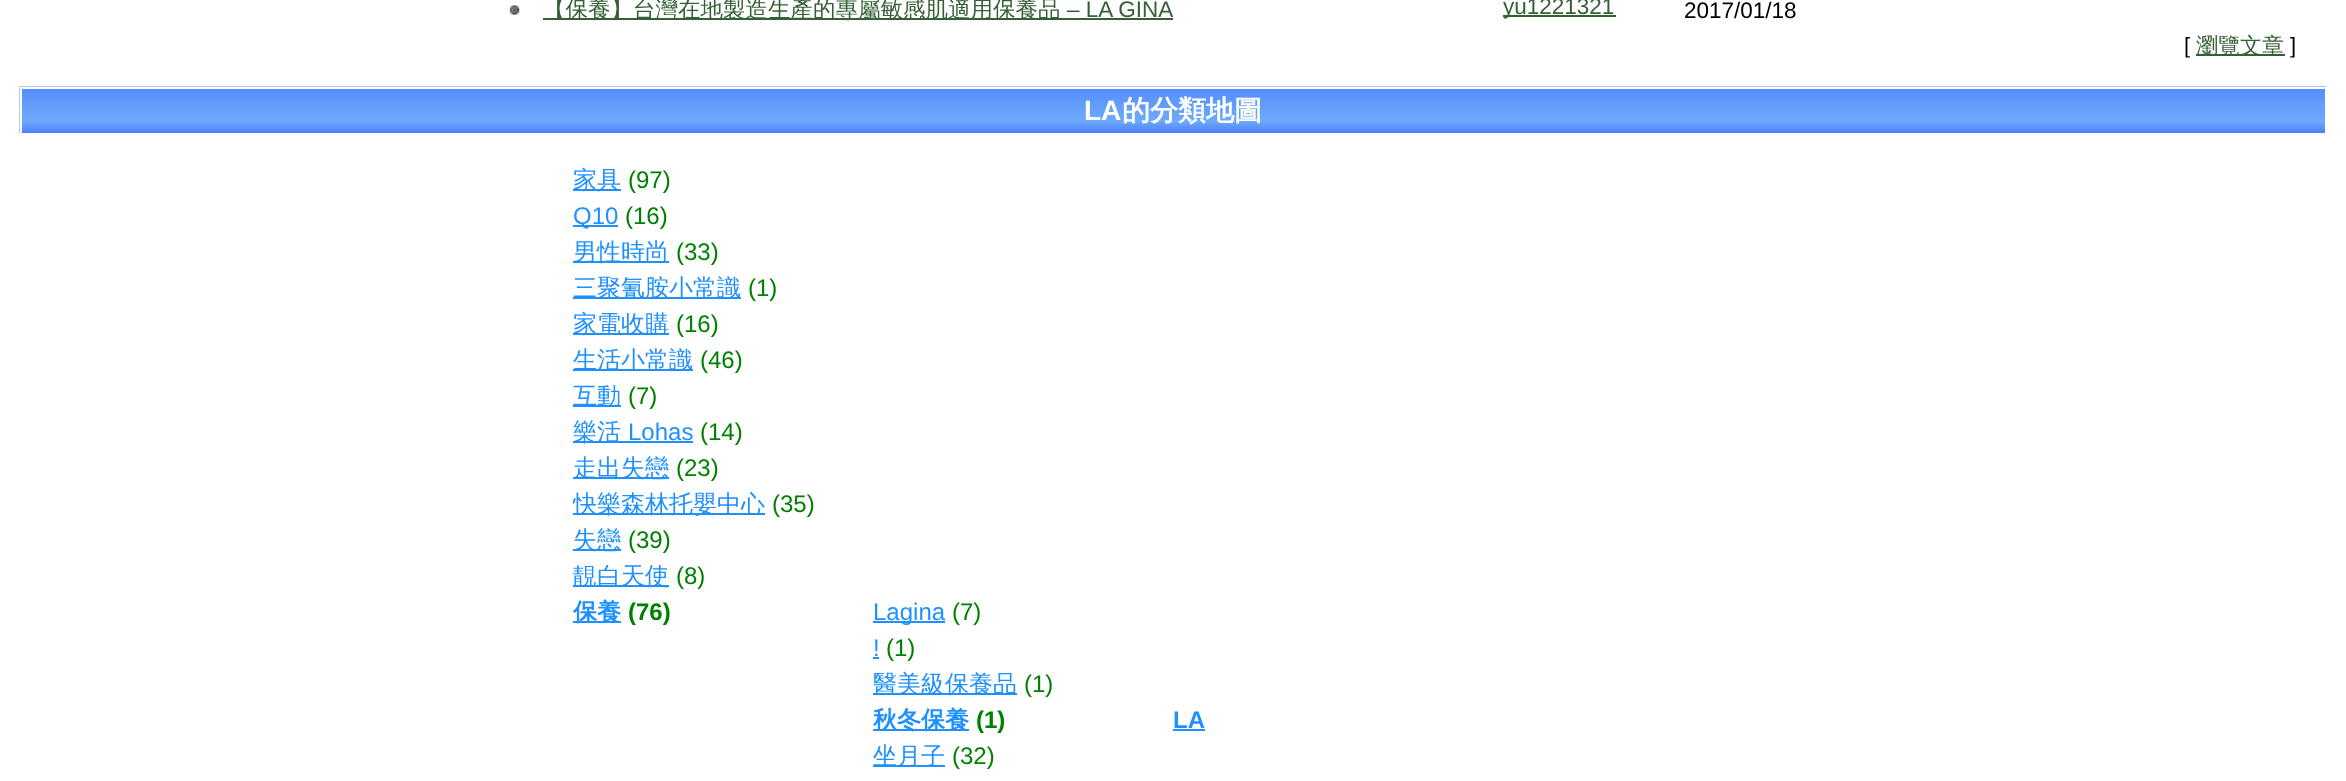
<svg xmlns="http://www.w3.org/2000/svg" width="2346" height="781">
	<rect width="100%" height="100%" fill="#FFFFFF" />
	<image x="509" y="5" width="11" height="10" href="assets/img1.png" />
	<rect x="543" y="18" width="630" height="2" fill="#355F35" />
	<text x="543" y="17" font-family="WenQuanYi Zen Hei" font-size="22.5" font-weight="500" fill="#355F35">【保養】台灣在地製造生產的專屬敏感肌適用保養品</text>
	<text x="1067" y="17" font-family="Liberation Sans" font-size="22.5" fill="#355F35">– LA GINA</text>
	<rect x="1503" y="15" width="113" height="2" fill="#355F35" />
	<text x="1503" y="14" font-family="Liberation Sans" font-size="22.5" fill="#355F35">yu1221321</text>
	<text x="1684" y="18" font-family="Liberation Sans" font-size="22.5" fill="#000000">2017/01/18</text>
	<text x="2184" y="53" font-family="Liberation Sans" font-size="22" fill="#000000">[</text>
	<rect x="2196" y="54" width="89" height="2" fill="#355F35" />
	<text x="2196" y="53" font-family="WenQuanYi Zen Hei" font-size="22" font-weight="500" fill="#355F35">瀏覽文章</text>
	<text x="2290" y="53" font-family="Liberation Sans" font-size="22" fill="#000000">]</text>
	<image x="19" y="86" width="2308" height="47" href="assets/img2.png" />
	<rect x="21" y="88" width="2305" height="46" fill="none" stroke="#FFFFFF" stroke-width="2" />
	<text x="1084" y="120" font-family="Liberation Sans" font-size="28" font-weight="700" fill="#FFFFFF">LA</text>
	<text x="1122" y="120" font-family="WenQuanYi Zen Hei" font-size="28" font-weight="700" fill="#FFFFFF">的分類地圖</text>
	<rect x="573" y="189" width="48" height="2" fill="#1E90FF" />
	<text x="573" y="188" font-family="WenQuanYi Zen Hei" font-size="24" font-weight="500" fill="#1E90FF">家具</text>
	<text x="628" y="188" font-family="Liberation Sans" font-size="24" fill="#008000">(97)</text>
	<rect x="573" y="225" width="45" height="2" fill="#1E90FF" />
	<text x="573" y="224" font-family="Liberation Sans" font-size="24" fill="#1E90FF">Q10</text>
	<text x="625" y="224" font-family="Liberation Sans" font-size="24" fill="#008000">(16)</text>
	<rect x="573" y="261" width="96" height="2" fill="#1E90FF" />
	<text x="573" y="260" font-family="WenQuanYi Zen Hei" font-size="24" font-weight="500" fill="#1E90FF">男性時尚</text>
	<text x="676" y="260" font-family="Liberation Sans" font-size="24" fill="#008000">(33)</text>
	<rect x="573" y="297" width="168" height="2" fill="#1E90FF" />
	<text x="573" y="296" font-family="WenQuanYi Zen Hei" font-size="24" font-weight="500" fill="#1E90FF">三聚氰胺小常識</text>
	<text x="748" y="296" font-family="Liberation Sans" font-size="24" fill="#008000">(1)</text>
	<rect x="573" y="333" width="96" height="2" fill="#1E90FF" />
	<text x="573" y="332" font-family="WenQuanYi Zen Hei" font-size="24" font-weight="500" fill="#1E90FF">家電收購</text>
	<text x="676" y="332" font-family="Liberation Sans" font-size="24" fill="#008000">(16)</text>
	<rect x="573" y="369" width="120" height="2" fill="#1E90FF" />
	<text x="573" y="368" font-family="WenQuanYi Zen Hei" font-size="24" font-weight="500" fill="#1E90FF">生活小常識</text>
	<text x="700" y="368" font-family="Liberation Sans" font-size="24" fill="#008000">(46)</text>
	<rect x="573" y="405" width="48" height="2" fill="#1E90FF" />
	<text x="573" y="404" font-family="WenQuanYi Zen Hei" font-size="24" font-weight="500" fill="#1E90FF">互動</text>
	<text x="628" y="404" font-family="Liberation Sans" font-size="24" fill="#008000">(7)</text>
	<rect x="573" y="441" width="120" height="2" fill="#1E90FF" />
	<text x="573" y="440" font-family="WenQuanYi Zen Hei" font-size="24" font-weight="500" fill="#1E90FF">樂活</text>
	<text x="628" y="440" font-family="Liberation Sans" font-size="24" fill="#1E90FF">Lohas</text>
	<text x="700" y="440" font-family="Liberation Sans" font-size="24" fill="#008000">(14)</text>
	<rect x="573" y="477" width="96" height="2" fill="#1E90FF" />
	<text x="573" y="476" font-family="WenQuanYi Zen Hei" font-size="24" font-weight="500" fill="#1E90FF">走出失戀</text>
	<text x="676" y="476" font-family="Liberation Sans" font-size="24" fill="#008000">(23)</text>
	<rect x="573" y="513" width="192" height="2" fill="#1E90FF" />
	<text x="573" y="512" font-family="WenQuanYi Zen Hei" font-size="24" font-weight="500" fill="#1E90FF">快樂森林托嬰中心</text>
	<text x="772" y="512" font-family="Liberation Sans" font-size="24" fill="#008000">(35)</text>
	<rect x="573" y="549" width="48" height="2" fill="#1E90FF" />
	<text x="573" y="548" font-family="WenQuanYi Zen Hei" font-size="24" font-weight="500" fill="#1E90FF">失戀</text>
	<text x="628" y="548" font-family="Liberation Sans" font-size="24" fill="#008000">(39)</text>
	<rect x="573" y="585" width="96" height="2" fill="#1E90FF" />
	<text x="573" y="584" font-family="WenQuanYi Zen Hei" font-size="24" font-weight="500" fill="#1E90FF">靚白天使</text>
	<text x="676" y="584" font-family="Liberation Sans" font-size="24" fill="#008000">(8)</text>
	<rect x="573" y="621" width="48" height="2" fill="#1E90FF" />
	<text x="573" y="620" font-family="WenQuanYi Zen Hei" font-size="24" font-weight="700" fill="#1E90FF">保養</text>
	<text x="628" y="620" font-family="Liberation Sans" font-size="24" font-weight="700" fill="#008000">(76)</text>
	<rect x="873" y="621" width="72" height="2" fill="#1E90FF" />
	<text x="873" y="620" font-family="Liberation Sans" font-size="24" fill="#1E90FF">Lagina</text>
	<text x="952" y="620" font-family="Liberation Sans" font-size="24" fill="#008000">(7)</text>
	<text x="873" y="656" font-family="Liberation Sans" font-size="24" fill="#1E90FF">!</text>
	<rect x="873" y="657" width="6" height="2" fill="#1E90FF" />
	<text x="886" y="656" font-family="Liberation Sans" font-size="24" fill="#008000">(1)</text>
	<rect x="873" y="693" width="144" height="2" fill="#1E90FF" />
	<text x="873" y="692" font-family="WenQuanYi Zen Hei" font-size="24" font-weight="500" fill="#1E90FF">醫美級保養品</text>
	<text x="1024" y="692" font-family="Liberation Sans" font-size="24" fill="#008000">(1)</text>
	<rect x="873" y="729" width="96" height="2" fill="#1E90FF" />
	<text x="873" y="728" font-family="WenQuanYi Zen Hei" font-size="24" font-weight="700" fill="#1E90FF">秋冬保養</text>
	<text x="976" y="728" font-family="Liberation Sans" font-size="24" font-weight="700" fill="#008000">(1)</text>
	<rect x="873" y="765" width="72" height="2" fill="#1E90FF" />
	<text x="873" y="764" font-family="WenQuanYi Zen Hei" font-size="24" font-weight="500" fill="#1E90FF">坐月子</text>
	<text x="952" y="764" font-family="Liberation Sans" font-size="24" fill="#008000">(32)</text>
	<text x="1173" y="728" font-family="Liberation Sans" font-size="24" font-weight="700" fill="#1E90FF">LA</text>
	<rect x="1173" y="729" width="32" height="2" fill="#1E90FF" />
</svg>
